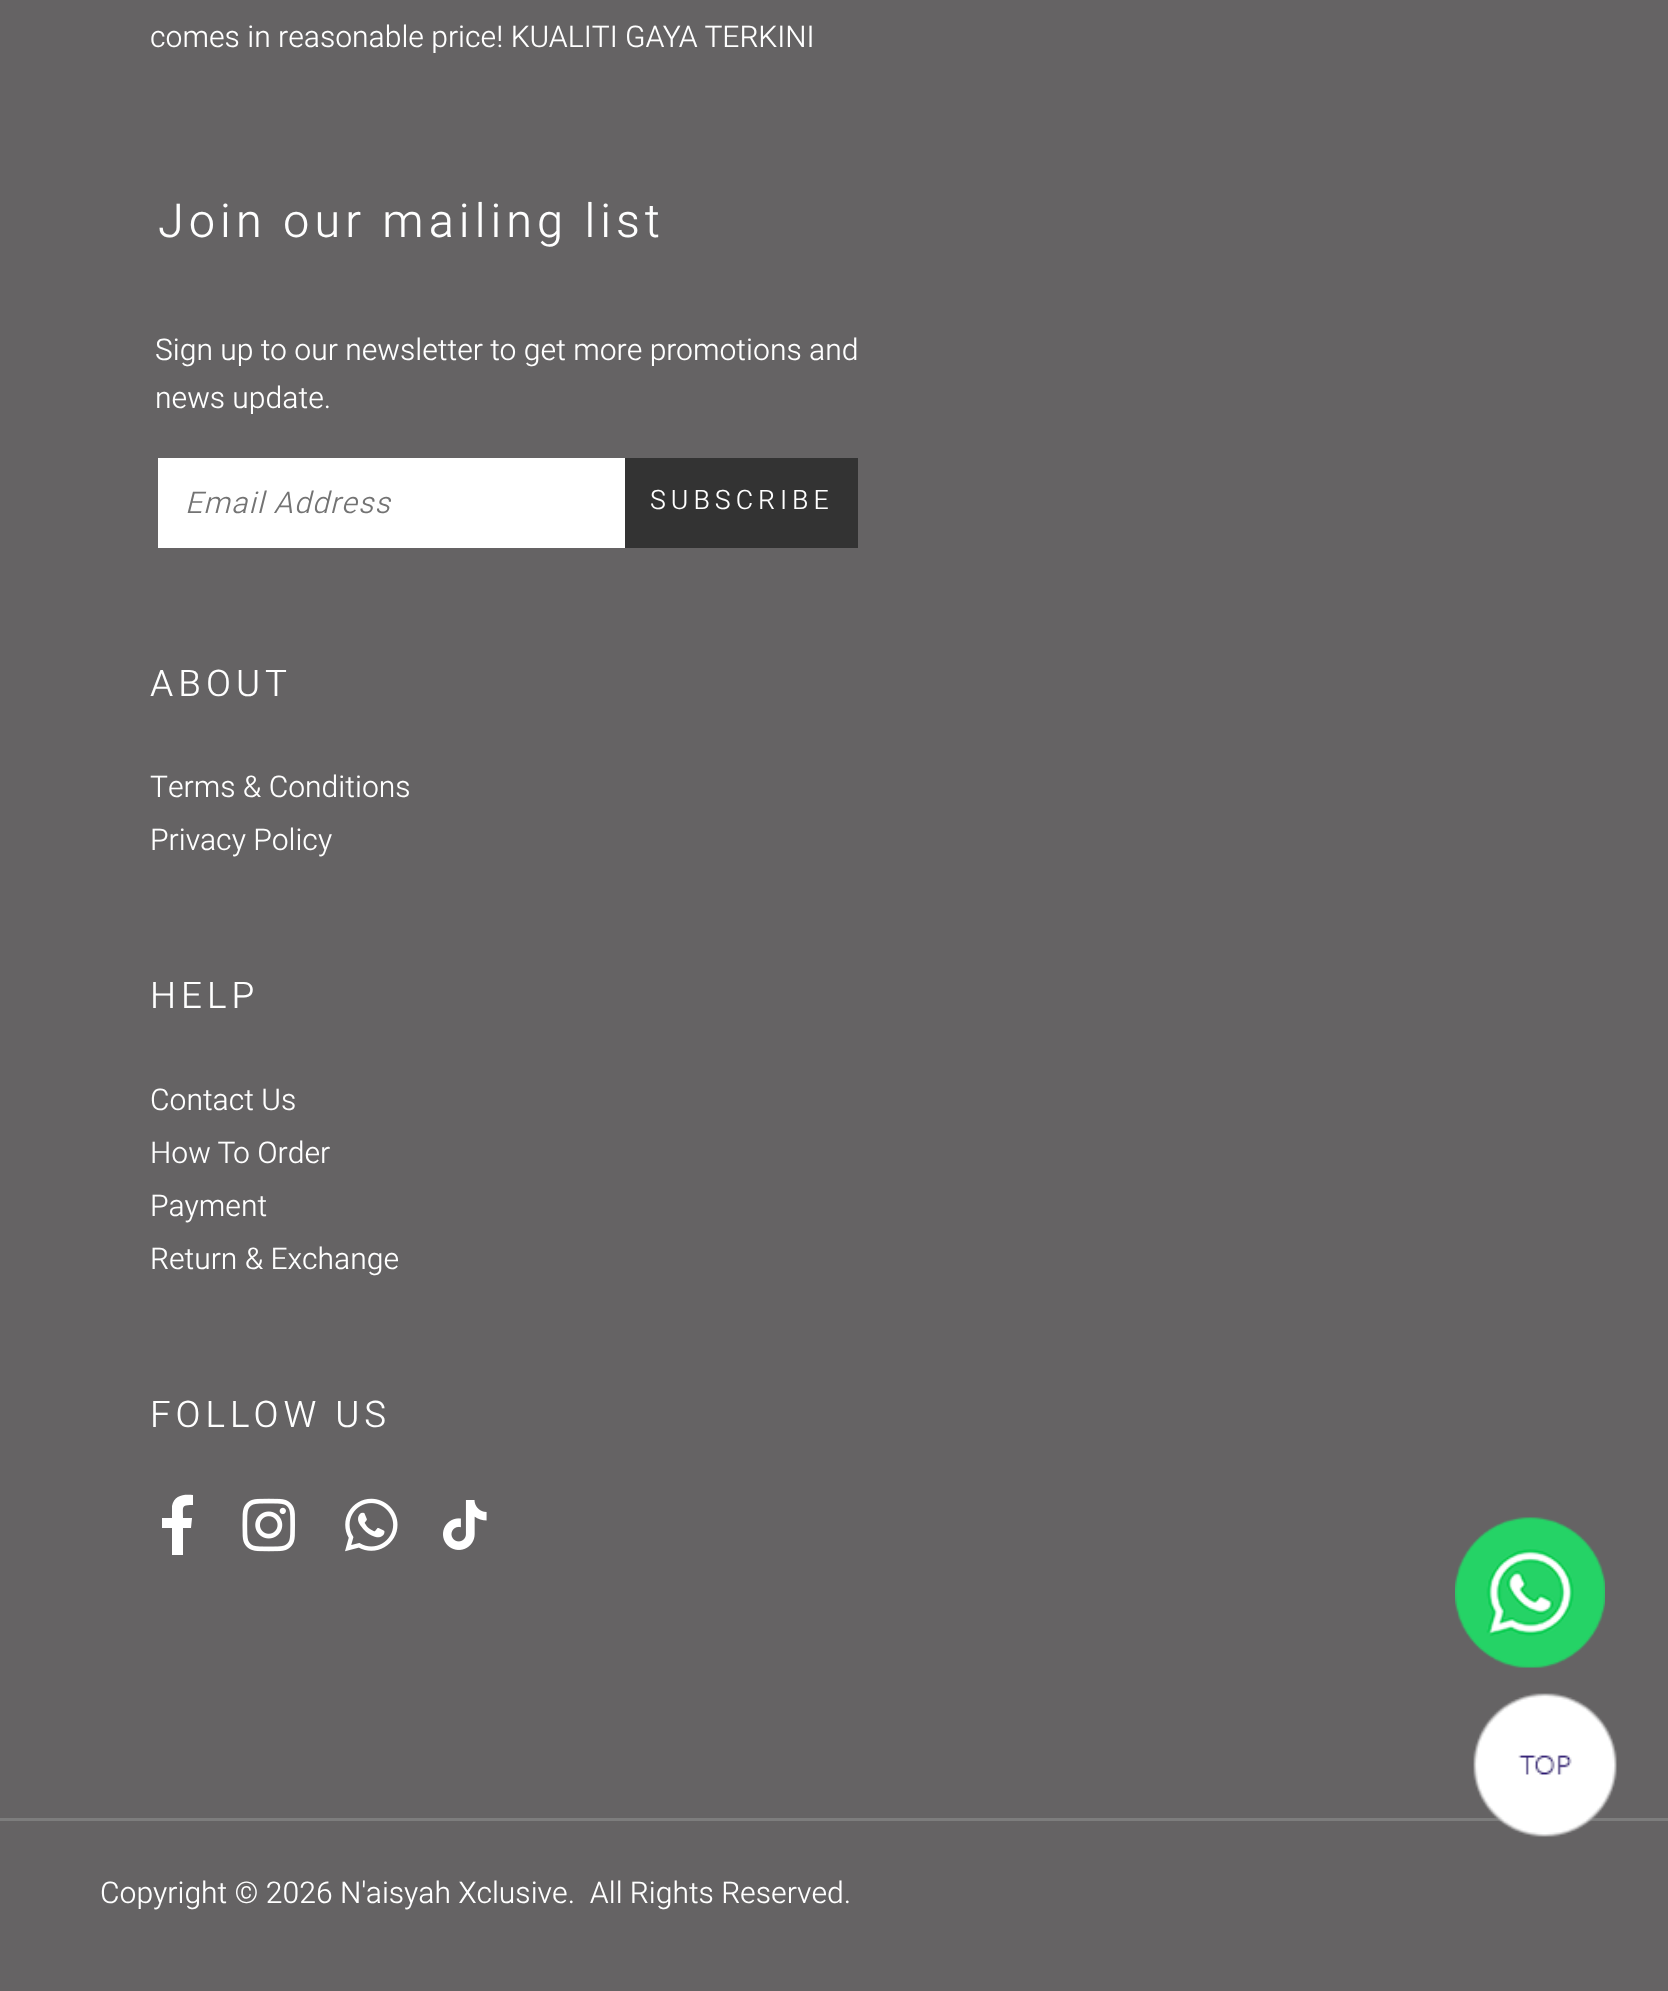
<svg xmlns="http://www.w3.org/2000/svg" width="1668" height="1991">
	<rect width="100%" height="100%" fill="#656364" />
	<text x="150" y="47" font-family="Heebo" font-size="30" font-weight="300" fill="#FFFFFF">comes in reasonable price! KUALITI GAYA TERKINI</text>
	<text x="158" y="237" font-family="Heebo" font-size="46.75" font-weight="300" letter-spacing="5" fill="#FFFFFF">Join our mailing list</text>
	<g font-family="Heebo" font-size="30" font-weight="300" fill="#FFFFFF">
		<text x="155" y="360">Sign up to our newsletter to get more promotions and</text>
		<text x="155" y="408">news update.</text>
	</g>
	<rect x="158" y="458" width="467" height="90" fill="#FFFFFF" />
	<text x="185" y="513" font-family="Heebo" font-size="30" font-weight="300" font-style="italic" letter-spacing="1.25" fill="#737373">Email Address</text>
	<rect x="625" y="458" width="233" height="90" fill="#333333" />
	<text x="650" y="509" font-family="Heebo" font-size="26.75" font-weight="300" letter-spacing="5" fill="#FFFFFF">SUBSCRIBE</text>
	<text x="150" y="696" font-family="Heebo" font-size="36.75" font-weight="300" letter-spacing="5" fill="#FFFFFF">ABOUT</text>
	<g font-family="Heebo" font-size="30" font-weight="300" fill="#FFFFFF">
		<text x="150" y="797">Terms &amp; Conditions</text>
		<text x="150" y="850">Privacy Policy</text>
	</g>
	<text x="150" y="1008" font-family="Heebo" font-size="36.75" font-weight="300" letter-spacing="5" fill="#FFFFFF">HELP</text>
	<g font-family="Heebo" font-size="30" font-weight="300" fill="#FFFFFF">
		<text x="150" y="1110">Contact Us</text>
		<text x="150" y="1163">How To Order</text>
		<text x="150" y="1216">Payment</text>
		<text x="150" y="1269">Return &amp; Exchange</text>
	</g>
	<text x="150" y="1427" font-family="Heebo" font-size="36.75" font-weight="300" letter-spacing="5" fill="#FFFFFF">FOLLOW US</text>
	<path d="M172 1555V1528H162V1518H172V1506C174 1495 184 1494 193 1495V1505C181 1505 183 1506 183 1518H192L191 1528H183V1555Z" fill="#FFFFFF" />
	<image x="242" y="1498" width="53" height="54" href="assets/img1.png" />
	<image x="345" y="1498" width="53" height="54" href="assets/img2.png" />
	<image x="443" y="1500" width="44" height="50" href="assets/img3.png" />
	<rect x="0" y="1818" width="1668" height="3" fill="#7D7D7D" />
	<text x="100" y="1903" font-family="Heebo" font-size="30" font-weight="300" fill="#FFFFFF" xml:space="preserve">Copyright © 2026 N'aisyah Xclusive.  All Rights Reserved.</text>
	<image x="1455" y="1517" width="150" height="151" href="assets/img4.png" />
	<image x="1473" y="1693" width="144" height="144" href="assets/img5.png" />
</svg>
